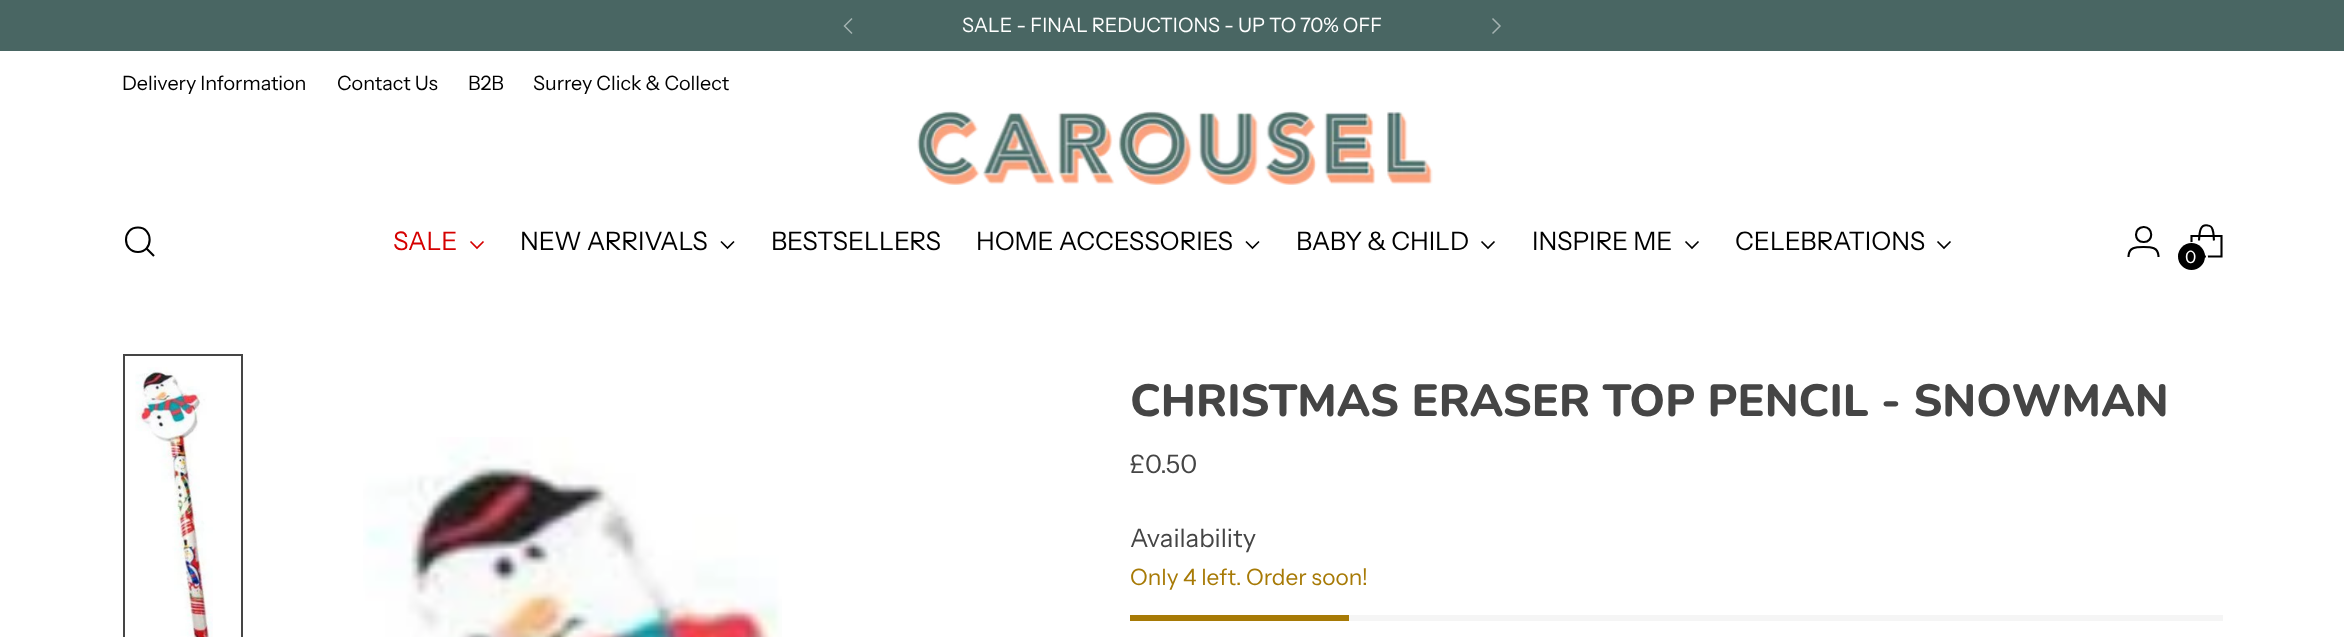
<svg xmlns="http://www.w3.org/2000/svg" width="2344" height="637">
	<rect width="100%" height="100%" fill="#FFFFFF" />
	<rect x="0" y="0" width="2344" height="51" fill="#496663" />
	<text x="962" y="32" font-family="Instrument Sans" font-size="19.8" fill="#FFFFFF">SALE - FINAL REDUCTIONS - UP TO 70% OFF</text>
	<path d="M852 18.5L844.5 26L852 33.5" fill="none" stroke="#A4B3B1" stroke-width="1.5" />
	<path d="M1492.5 33.5L1500 26L1492.5 18.5" fill="none" stroke="#A4B3B1" stroke-width="1.5" />
	<g font-family="Instrument Sans" font-size="19.8" fill="#000000">
		<text x="122" y="90">Delivery Information</text>
		<text x="337" y="90">Contact Us</text>
		<text x="468" y="90">B2B</text>
		<text x="533" y="90">Surrey Click &amp; Collect</text>
	</g>
	<image x="917" y="110" width="516" height="75" href="assets/img1.png" />
	<path d="M138 252C153.5 252 153.5 227.5 138 227.5C122 227.5 122 252 138 252Z" fill="none" stroke="#000000" stroke-width="2.1" stroke-linecap="round" />
	<path d="M146.5 248.5L154 256" fill="none" stroke="#000000" stroke-width="2.1" />
	<text x="393" y="250" font-family="Instrument Sans" font-size="25.5" letter-spacing="-0.1" fill="#D50000">SALE</text>
	<path d="M470.5 241.5L477 248L483.5 241.5" fill="none" stroke="#D50000" stroke-width="1.7" />
	<text x="520" y="250" font-family="Instrument Sans" font-size="25.5" letter-spacing="-0.1" fill="#000000">NEW ARRIVALS</text>
	<path d="M721 241.5L727.5 248L734 241.5" fill="none" stroke="#000000" stroke-width="1.7" />
	<g font-family="Instrument Sans" font-size="25.5" letter-spacing="-0.1" fill="#000000">
		<text x="771" y="250">BESTSELLERS</text>
		<text x="976" y="250">HOME ACCESSORIES</text>
	</g>
	<path d="M1246 241.5L1252.5 248L1259 241.5" fill="none" stroke="#000000" stroke-width="1.7" />
	<text x="1296" y="250" font-family="Instrument Sans" font-size="25.5" letter-spacing="-0.1" fill="#000000">BABY &amp; CHILD</text>
	<path d="M1481.5 241.5L1488 248L1494.5 241.5" fill="none" stroke="#000000" stroke-width="1.7" />
	<text x="1532" y="250" font-family="Instrument Sans" font-size="25.5" letter-spacing="-0.1" fill="#000000">INSPIRE ME</text>
	<path d="M1685.5 241.5L1692 248L1698.5 241.5" fill="none" stroke="#000000" stroke-width="1.7" />
	<text x="1735" y="250" font-family="Instrument Sans" font-size="25.5" letter-spacing="-0.1" fill="#000000">CELEBRATIONS</text>
	<path d="M1937.5 241.5L1944 248L1950.5 241.5" fill="none" stroke="#000000" stroke-width="1.7" />
	<path d="M2143.5 242C2154 242.5 2153.5 226.5 2143.5 227C2133.5 227.5 2133.5 242 2143.5 242ZM2128.5 257C2128.5 247 2136 247 2143.5 247C2151 247 2158.5 247 2158.5 257" fill="none" stroke="#000000" stroke-width="2.1" />
	<path d="M2214 240.5C2213.5 237 2214 233 2212.5 229.5C2212 227.5 2210 225.5 2208 225.5C2199 223.5 2199.5 235 2199 240.5" fill="none" stroke="#000000" stroke-width="2.1" stroke-linejoin="bevel" />
	<path d="M2221.5 256.5V236H2191.5V256.5Z" fill="none" stroke="#000000" stroke-width="2.1" />
	<circle cx="2192.5" cy="257.5" r="14.5" fill="none" stroke="#FFFFFF" stroke-width="2" />
	<circle cx="2191.5" cy="256.5" r="13.5" fill="#000000" />
	<text x="2185" y="263" font-family="Instrument Sans" font-size="17" fill="#FFFFFF">0</text>
	<image x="135" y="367" width="78" height="270" href="assets/img2.png" />
	<rect x="124" y="355" width="118" height="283" fill="none" stroke="#454545" stroke-width="2" />
	<image x="363" y="437" width="419" height="200" href="assets/img3.png" />
	<text x="1130" y="416" font-family="Nunito" font-size="45" font-weight="800" fill="#454545">CHRISTMAS ERASER TOP PENCIL - SNOWMAN</text>
	<g font-family="Instrument Sans" font-size="25.5" fill="#454545">
		<text x="1130" y="473">£0.50</text>
		<text x="1130" y="547">Availability</text>
	</g>
	<text x="1130" y="585" font-family="Instrument Sans" font-size="22.6" fill="#A77A06">Only 4 left. Order soon!</text>
	<rect x="1349" y="615" width="874" height="6" fill="#F5F5F5" />
	<rect x="1130" y="615" width="219" height="6" fill="#A77A06" />
</svg>
